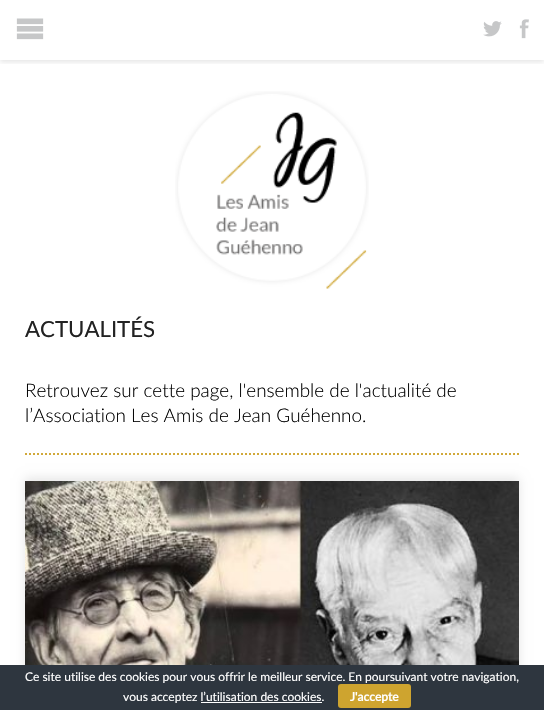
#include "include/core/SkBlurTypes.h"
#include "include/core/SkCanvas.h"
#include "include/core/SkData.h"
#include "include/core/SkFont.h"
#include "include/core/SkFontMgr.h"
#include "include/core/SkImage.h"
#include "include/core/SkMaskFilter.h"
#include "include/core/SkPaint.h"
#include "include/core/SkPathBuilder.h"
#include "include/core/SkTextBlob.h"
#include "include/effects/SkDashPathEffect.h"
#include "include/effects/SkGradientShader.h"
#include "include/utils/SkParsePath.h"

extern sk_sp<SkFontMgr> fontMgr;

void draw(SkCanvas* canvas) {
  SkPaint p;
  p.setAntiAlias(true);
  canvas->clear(SK_ColorWHITE);
  canvas->save();
  canvas->clipRect(SkRect::MakeLTRB(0, 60, 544, 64));
  p.setColor(SkColorSetARGB(26, 0, 0, 0));
  p.setMaskFilter(SkMaskFilter::MakeBlur(kNormal_SkBlurStyle, 2.5f));
  canvas->drawRect(SkRect::MakeLTRB(0, 2, 544, 62), p);
  p.setMaskFilter(nullptr);
  canvas->restore();
  canvas->drawImageRect(SkImages::DeferredFromEncodedData(SkData::MakeFromFileName("images/1.png")), SkRect::MakeLTRB(16, 18, 44, 40), SkSamplingOptions());
  canvas->drawImageRect(SkImages::DeferredFromEncodedData(SkData::MakeFromFileName("images/2.png")), SkRect::MakeLTRB(483, 21, 502, 37), SkSamplingOptions());
  canvas->drawImageRect(SkImages::DeferredFromEncodedData(SkData::MakeFromFileName("images/3.png")), SkRect::MakeLTRB(519, 19, 529, 39), SkSamplingOptions());
  canvas->drawImageRect(SkImages::DeferredFromEncodedData(SkData::MakeFromFileName("images/4.png")), SkRect::MakeLTRB(175, 91, 369, 289), SkSamplingOptions());
  p.setStyle(SkPaint::kStroke_Style);
  p.setStrokeWidth(2);
  p.setColor(SkColorSetRGB(209, 169, 58));
  p.setPathEffect(SkDashPathEffect::Make({{2, 2}}, 0));
  canvas->drawPath(SkPathBuilder().moveTo(25, 454).lineTo(519, 454).detach(), p);
  p.setPathEffect(nullptr);
  p.setStyle(SkPaint::kFill_Style);
  p.setColor(SkColorSetARGB(26, 0, 0, 0));
  p.setMaskFilter(SkMaskFilter::MakeBlur(kNormal_SkBlurStyle, 5));
  canvas->drawRect(SkRect::MakeLTRB(25, 478, 519, 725), p);
  p.setMaskFilter(nullptr);
  canvas->drawImageRect(SkImages::DeferredFromEncodedData(SkData::MakeFromFileName("images/5.png")), SkRect::MakeLTRB(25, 481, 519, 665), SkSamplingOptions());
  p.setColor(SkColorSetRGB(46, 54, 63));
  canvas->drawRect(SkRect::MakeLTRB(0, 665, 544, 710), p);
  p.setColor(SkColorSetRGB(206, 164, 47));
  canvas->drawRoundRect(SkRect::MakeLTRB(338, 684, 411, 708), 3, 3, p);
  p.setColor(SK_ColorWHITE);
  canvas->drawRect(SkRect::MakeLTRB(201, 702, 322, 703), p);
  SkFont font1(fontMgr->matchFamilyStyle("Lato", SkFontStyle::Normal()), 22.25f);
  font1.setSubpixel(true);
  p.setColor(SkColorSetRGB(34, 34, 34));
  canvas->drawString("ACTUALITÉS", 25, 337, font1, p);
  SkFont font2(fontMgr->matchFamilyStyle("Lato", SkFontStyle(300, SkFontStyle::kNormal_Width, SkFontStyle::kUpright_Slant)), 18.9f);
  font2.setSubpixel(true);
  p.setColor(SK_ColorBLACK);
  canvas->drawString("Retrouvez sur cette page, l'ensemble de l'actualité de", 25, 397, font2, p);
  canvas->drawString("l’Association Les Amis de Jean Guéhenno.", 25, 422, font2, p);
  SkFont font3(fontMgr->matchFamilyStyle("Lato", SkFontStyle::Normal()), 12);
  font3.setSubpixel(true);
  p.setColor(SK_ColorWHITE);
  canvas->drawString("Ce site utilise des cookies pour vous offrir le meilleur service. En poursuivant votre navigation,", 25, 681, font3, p);
  canvas->drawString("vous acceptez l’utilisation des cookies.", 123, 701, font3, p);
  SkFont font4(fontMgr->matchFamilyStyle("Lato", SkFontStyle::Bold()), 12);
  font4.setSubpixel(true);
  canvas->drawString("J'accepte", 350, 701, font4, p);
}
